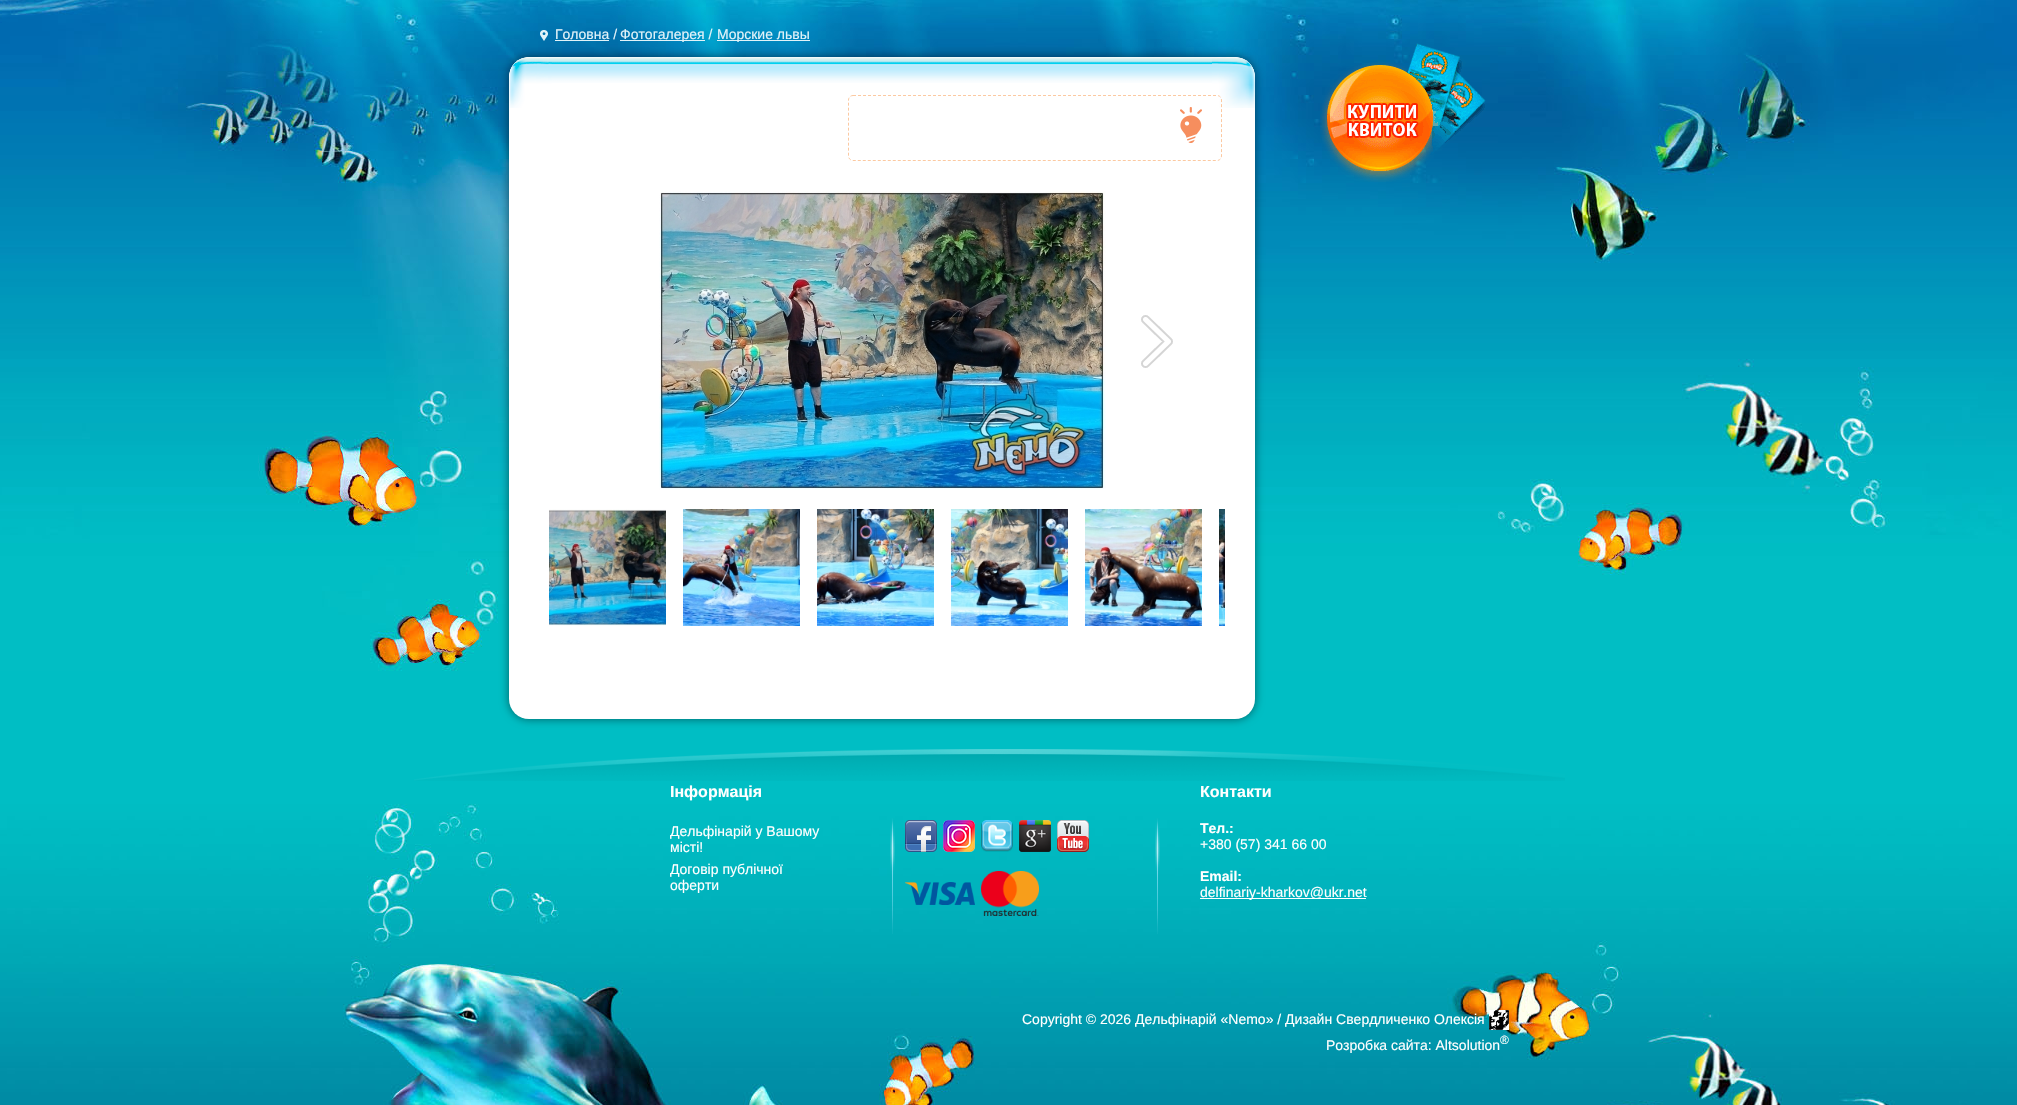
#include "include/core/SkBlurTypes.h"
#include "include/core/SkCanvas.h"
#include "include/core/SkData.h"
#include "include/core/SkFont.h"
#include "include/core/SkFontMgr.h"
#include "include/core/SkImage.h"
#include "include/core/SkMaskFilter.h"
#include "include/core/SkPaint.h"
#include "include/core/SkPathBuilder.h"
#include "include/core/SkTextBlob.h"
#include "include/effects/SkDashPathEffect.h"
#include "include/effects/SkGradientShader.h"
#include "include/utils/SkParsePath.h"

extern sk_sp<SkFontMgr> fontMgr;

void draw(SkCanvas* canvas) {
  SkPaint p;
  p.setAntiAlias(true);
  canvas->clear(SkColorSetRGB(0, 190, 196));
  canvas->drawImageRect(SkImages::DeferredFromEncodedData(SkData::MakeFromFileName("images/1.png")), SkRect::MakeLTRB(0, 0, 2017, 671), SkSamplingOptions());
  canvas->drawImageRect(SkImages::DeferredFromEncodedData(SkData::MakeFromFileName("images/2.png")), SkRect::MakeLTRB(540, 30, 548, 41), SkSamplingOptions());
  p.setColor(SkColorSetRGB(226, 243, 249));
  canvas->drawRect(SkRect::MakeLTRB(555, 40, 609, 41), p);
  canvas->drawRect(SkRect::MakeLTRB(620, 40, 705, 41), p);
  canvas->drawRect(SkRect::MakeLTRB(717, 40, 810, 41), p);
  p.setColor(SkColorSetARGB(128, 0, 0, 0));
  p.setMaskFilter(SkMaskFilter::MakeBlur(kNormal_SkBlurStyle, 5));
  canvas->drawRoundRect(SkRect::MakeLTRB(509, 57, 1255, 719), 20, 20, p);
  p.setMaskFilter(nullptr);
  p.setColor(SK_ColorWHITE);
  canvas->drawRoundRect(SkRect::MakeLTRB(509, 57, 1255, 719), 20, 20, p);
  canvas->drawImageRect(SkImages::DeferredFromEncodedData(SkData::MakeFromFileName("images/3.png")), SkRect::MakeLTRB(509, 57, 1255, 83), SkSamplingOptions());
  canvas->drawImageRect(SkImages::DeferredFromEncodedData(SkData::MakeFromFileName("images/4.png")), SkRect::MakeLTRB(509, 57, 552, 108), SkSamplingOptions());
  canvas->drawImageRect(SkImages::DeferredFromEncodedData(SkData::MakeFromFileName("images/5.png")), SkRect::MakeLTRB(1212, 57, 1255, 108), SkSamplingOptions());
  p.setStyle(SkPaint::kStroke_Style);
  p.setStrokeWidth(1);
  p.setColor(SkColorSetRGB(252, 201, 161));
  p.setPathEffect(SkDashPathEffect::Make({{3, 2}}, 0));
  canvas->drawPath(SkPathBuilder().moveTo(853, 95.5f).lineTo(1217, 95.5f).cubicTo(1219.5f, 95.5f, 1221.5f, 97.5f, 1221.5f, 100).lineTo(1221.5f, 156).cubicTo(1221.5f, 158.5f, 1219.5f, 160.5f, 1217, 160.5f).lineTo(853, 160.5f).cubicTo(850.5f, 160.5f, 848.5f, 158.5f, 848.5f, 156).lineTo(848.5f, 100).cubicTo(848.5f, 97.5f, 850.5f, 95.5f, 853, 95.5f).close().detach(), p);
  p.setPathEffect(nullptr);
  canvas->drawImageRect(SkImages::DeferredFromEncodedData(SkData::MakeFromFileName("images/6.png")), SkRect::MakeLTRB(1180, 107, 1202, 143), SkSamplingOptions());
  canvas->drawImageRect(SkImages::DeferredFromEncodedData(SkData::MakeFromFileName("images/7.png")), SkRect::MakeLTRB(659, 191, 1106, 490), SkSamplingOptions());
  canvas->drawImageRect(SkImages::DeferredFromEncodedData(SkData::MakeFromFileName("images/8.png")), SkRect::MakeLTRB(1141, 315, 1173, 368), SkSamplingOptions());
  canvas->drawImageRect(SkImages::DeferredFromEncodedData(SkData::MakeFromFileName("images/9.png")), SkRect::MakeLTRB(549, 509, 666, 626), SkSamplingOptions());
  canvas->drawImageRect(SkImages::DeferredFromEncodedData(SkData::MakeFromFileName("images/10.png")), SkRect::MakeLTRB(683, 509, 800, 626), SkSamplingOptions());
  canvas->drawImageRect(SkImages::DeferredFromEncodedData(SkData::MakeFromFileName("images/11.png")), SkRect::MakeLTRB(817, 509, 934, 626), SkSamplingOptions());
  canvas->drawImageRect(SkImages::DeferredFromEncodedData(SkData::MakeFromFileName("images/12.png")), SkRect::MakeLTRB(951, 509, 1068, 626), SkSamplingOptions());
  canvas->drawImageRect(SkImages::DeferredFromEncodedData(SkData::MakeFromFileName("images/13.png")), SkRect::MakeLTRB(1085, 509, 1202, 626), SkSamplingOptions());
  canvas->drawImageRect(SkImages::DeferredFromEncodedData(SkData::MakeFromFileName("images/14.png")), SkRect::MakeLTRB(1219, 509, 1225, 626), SkSamplingOptions());
  canvas->drawImageRect(SkImages::DeferredFromEncodedData(SkData::MakeFromFileName("images/15.png")), SkRect::MakeLTRB(1320, 43, 1486, 182), SkSamplingOptions());
  canvas->drawImageRect(SkImages::DeferredFromEncodedData(SkData::MakeFromFileName("images/16.png")), SkRect::MakeLTRB(414, 749, 1565, 781), SkSamplingOptions());
  canvas->drawImageRect(SkImages::DeferredFromEncodedData(SkData::MakeFromFileName("images/26.png")), SkRect::MakeLTRB(0, 804, 2017, 1105), SkSamplingOptions());
  canvas->drawImageRect(SkImages::DeferredFromEncodedData(SkData::MakeFromFileName("images/17.png")), SkRect::MakeLTRB(890, 818, 895, 934), SkSamplingOptions());
  canvas->drawImageRect(SkImages::DeferredFromEncodedData(SkData::MakeFromFileName("images/18.png")), SkRect::MakeLTRB(1155, 818, 1160, 934), SkSamplingOptions());
  canvas->drawImageRect(SkImages::DeferredFromEncodedData(SkData::MakeFromFileName("images/19.png")), SkRect::MakeLTRB(905, 820, 937, 852), SkSamplingOptions());
  canvas->drawImageRect(SkImages::DeferredFromEncodedData(SkData::MakeFromFileName("images/20.png")), SkRect::MakeLTRB(943, 820, 975, 852), SkSamplingOptions());
  canvas->drawImageRect(SkImages::DeferredFromEncodedData(SkData::MakeFromFileName("images/21.png")), SkRect::MakeLTRB(981, 820, 1013, 852), SkSamplingOptions());
  canvas->drawImageRect(SkImages::DeferredFromEncodedData(SkData::MakeFromFileName("images/22.png")), SkRect::MakeLTRB(1019, 820, 1051, 852), SkSamplingOptions());
  canvas->drawImageRect(SkImages::DeferredFromEncodedData(SkData::MakeFromFileName("images/23.png")), SkRect::MakeLTRB(1057, 820, 1089, 852), SkSamplingOptions());
  canvas->drawImageRect(SkImages::DeferredFromEncodedData(SkData::MakeFromFileName("images/24.png")), SkRect::MakeLTRB(905, 882, 975, 905), SkSamplingOptions());
  canvas->drawImageRect(SkImages::DeferredFromEncodedData(SkData::MakeFromFileName("images/25.png")), SkRect::MakeLTRB(981, 871, 1039, 916), SkSamplingOptions());
  p.setStyle(SkPaint::kFill_Style);
  p.setColor(SK_ColorWHITE);
  canvas->drawRect(SkRect::MakeLTRB(1200, 898, 1366, 899), p);
  canvas->drawImageRect(SkImages::DeferredFromEncodedData(SkData::MakeFromFileName("images/27.png")), SkRect::MakeLTRB(1489, 1010, 1509, 1030), SkSamplingOptions());
  SkFont font1(fontMgr->matchFamilyStyle("Liberation Sans", SkFontStyle::Normal()), 14);
  font1.setSubpixel(true);
  p.setColor(SkColorSetRGB(226, 243, 249));
  canvas->drawString("Головна /", 555, 39, font1, p);
  canvas->drawString("Фотогалерея /", 620, 39, font1, p);
  canvas->drawString("Морские львы", 717, 39, font1, p);
  SkFont font2(fontMgr->matchFamilyStyle("Liberation Sans", SkFontStyle::Bold()), 16);
  font2.setSubpixel(true);
  p.setColor(SK_ColorWHITE);
  canvas->drawString("Інформація", 670, 797, font2, p);
  canvas->drawString("Дельфiнарiй у Вашому", 670, 836, font1, p);
  canvas->drawString("мiстi!", 670, 852, font1, p);
  canvas->drawString("Договір публічної", 670, 874, font1, p);
  canvas->drawString("оферти", 670, 890, font1, p);
  canvas->drawString("Контакти", 1200, 797, font2, p);
  SkFont font3(fontMgr->matchFamilyStyle("Liberation Sans", SkFontStyle::Bold()), 14);
  font3.setSubpixel(true);
  canvas->drawString("Тел.:", 1200, 833, font3, p);
  canvas->drawString("+380 (57) 341 66 00", 1200, 849, font1, p);
  canvas->drawString("Email:", 1200, 881, font3, p);
  canvas->drawString("delfinariy-kharkov@ukr.net", 1200, 897, font1, p);
  canvas->drawString("Copyright © 2026 Дельфінарій «Nemo» / Дизайн Свердличенко Олексія", 1022, 1024, font1, p);
  canvas->drawString("Розробка сайта: Altsolution", 1326, 1050, font1, p);
  SkFont font4(fontMgr->matchFamilyStyle("Liberation Sans", SkFontStyle::Normal()), 12);
  font4.setSubpixel(true);
  canvas->drawString("®", 1500, 1044, font4, p);
}
